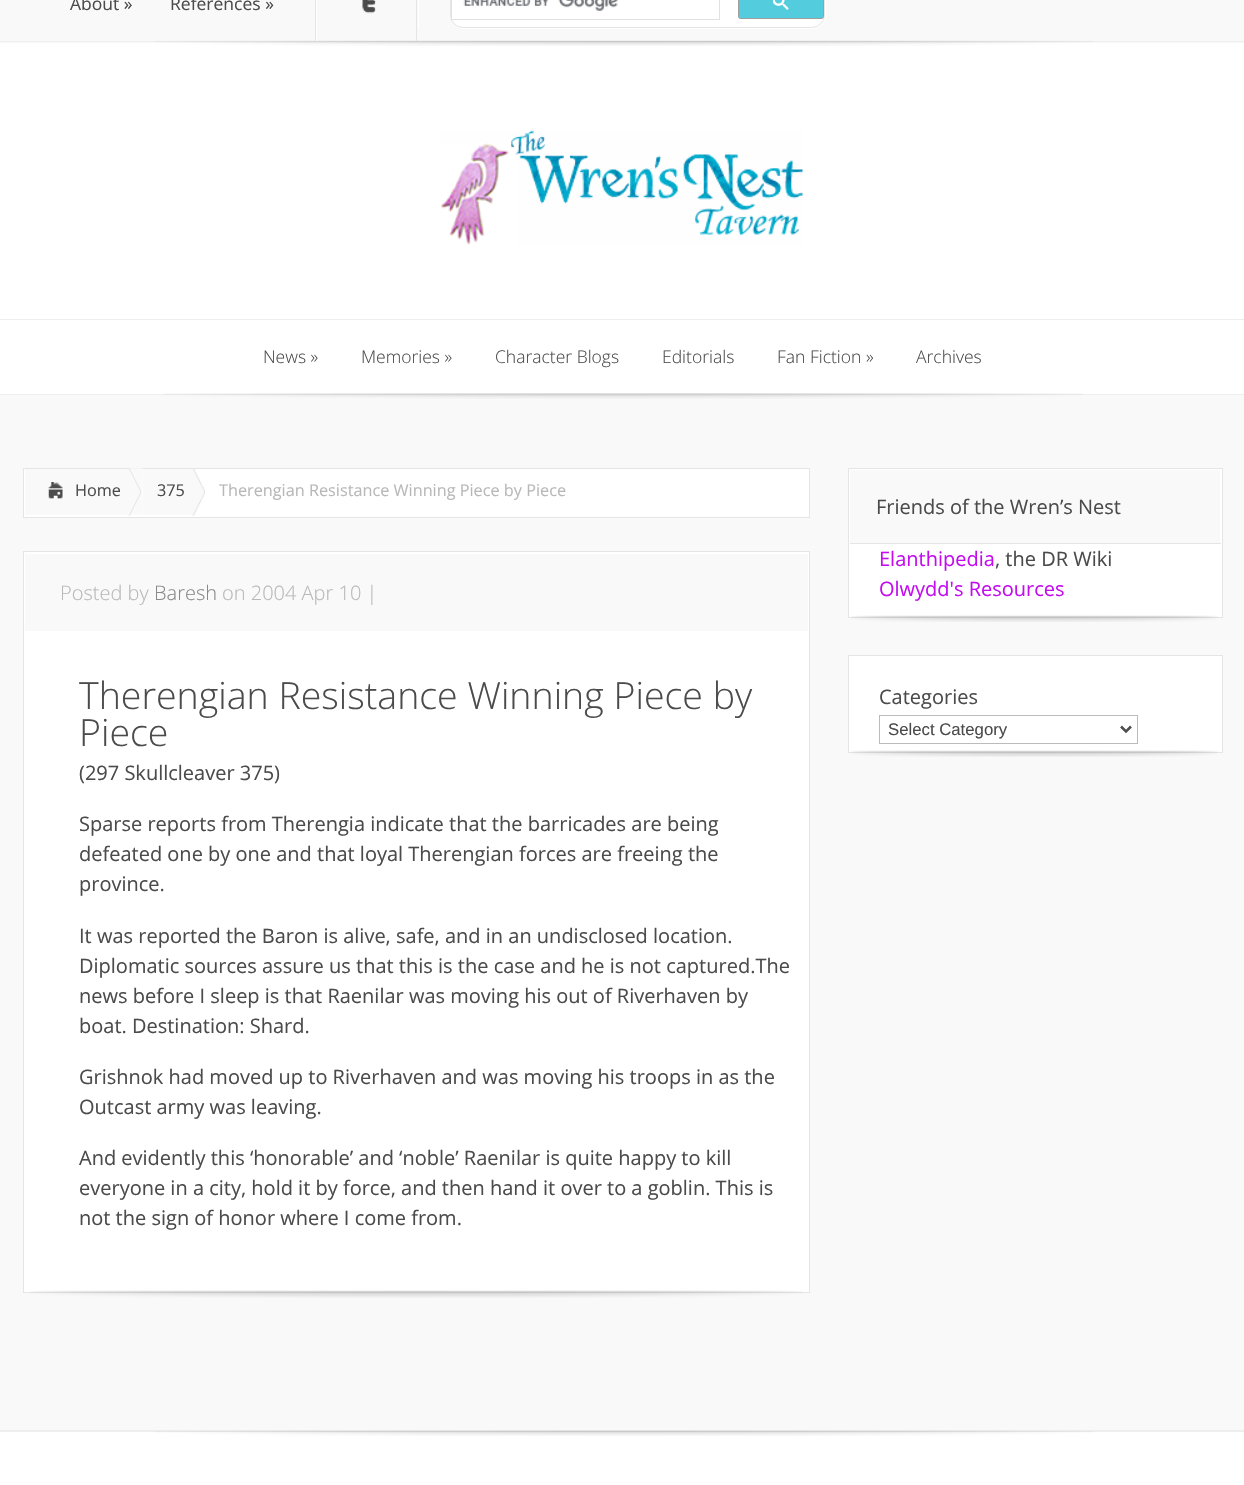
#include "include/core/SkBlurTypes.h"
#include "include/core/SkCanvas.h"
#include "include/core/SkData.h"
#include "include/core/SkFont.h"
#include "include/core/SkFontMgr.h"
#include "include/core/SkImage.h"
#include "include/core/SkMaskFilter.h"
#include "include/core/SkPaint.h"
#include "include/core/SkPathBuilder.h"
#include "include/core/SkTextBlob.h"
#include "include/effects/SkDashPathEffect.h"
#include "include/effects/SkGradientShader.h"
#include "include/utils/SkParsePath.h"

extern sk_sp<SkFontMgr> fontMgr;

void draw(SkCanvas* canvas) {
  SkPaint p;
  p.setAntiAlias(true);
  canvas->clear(SK_ColorWHITE);
  p.setColor(SkColorSetRGB(249, 249, 249));
  canvas->drawRect(SkRect::MakeLTRB(0, 0, 1244, 43), p);
  p.setColor(SkColorSetRGB(238, 238, 238));
  canvas->drawRect(SkRect::MakeLTRB(0, 41, 1244, 42), p);
  canvas->drawImageRect(SkImages::DeferredFromEncodedData(SkData::MakeFromFileName("images/4.png")), SkRect::MakeLTRB(155, 40, 1093, 46), SkSamplingOptions());
  p.setColor(SkColorSetRGB(229, 229, 229));
  canvas->drawRect(SkRect::MakeLTRB(315, 0, 316, 41), p);
  canvas->drawRect(SkRect::MakeLTRB(416, 0, 417, 41), p);
  p.setColor(SK_ColorWHITE);
  canvas->drawRect(SkRect::MakeLTRB(316, 0, 317, 41), p);
  canvas->drawImageRect(SkImages::DeferredFromEncodedData(SkData::MakeFromFileName("images/1.png")), SkRect::MakeLTRB(362, 0, 376, 14), SkSamplingOptions());
  canvas->drawRect(SkRect::MakeLTRB(418, 0, 419, 28), p);
  canvas->drawPath(SkPathBuilder().moveTo(454, 24).cubicTo(456, 27, 460, 29, 464, 29).lineTo(813, 29).cubicTo(820, 29, 826, 23, 826, 16).lineTo(826, -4).cubicTo(826, -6, 825, -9, 824, -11).lineTo(825, -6).lineTo(825, 15).cubicTo(825, 22, 819, 28, 812, 28).lineTo(462, 28).cubicTo(459, 28, 456, 26, 454, 24).close().detach(), p);
  canvas->drawRoundRect(SkRect::MakeLTRB(450.5f, -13.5f, 824.5f, 27.5f), 12.5f, 12.5f, p);
  p.setStyle(SkPaint::kStroke_Style);
  p.setStrokeWidth(1);
  p.setColor(SkColorSetRGB(229, 229, 229));
  canvas->drawRoundRect(SkRect::MakeLTRB(450.5f, -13.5f, 824.5f, 27.5f), 12.5f, 12.5f, p);
  p.setColor(SkColorSetRGB(223, 225, 229));
  canvas->drawRect(SkRect::MakeLTRB(451.5f, -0.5f, 719.5f, 19.5f), p);
  canvas->drawImageRect(SkImages::DeferredFromEncodedData(SkData::MakeFromFileName("images/2.png")), SkRect::MakeLTRB(463, 0, 618, 11), SkSamplingOptions());
  p.setStyle(SkPaint::kFill_Style);
  p.setColor(SkColorSetRGB(83, 204, 221));
  canvas->drawRoundRect(SkRect::MakeLTRB(738.5f, -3.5f, 823.5f, 18.5f), 2, 2, p);
  p.setStyle(SkPaint::kStroke_Style);
  p.setColor(SkColorSetRGB(158, 158, 158));
  canvas->drawRoundRect(SkRect::MakeLTRB(738.5f, -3.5f, 823.5f, 18.5f), 2, 2, p);
  canvas->drawImageRect(SkImages::DeferredFromEncodedData(SkData::MakeFromFileName("images/3.png")), SkRect::MakeLTRB(773, 0, 789, 10), SkSamplingOptions());
  canvas->drawImageRect(SkImages::DeferredFromEncodedData(SkData::MakeFromFileName("images/5.png")), SkRect::MakeLTRB(441, 130, 803, 245), SkSamplingOptions());
  p.setStyle(SkPaint::kFill_Style);
  p.setColor(SkColorSetRGB(238, 238, 238));
  canvas->drawRect(SkRect::MakeLTRB(0, 319, 1244, 320), p);
  canvas->drawRect(SkRect::MakeLTRB(0, 394, 1244, 395), p);
  p.setColor(SkColorSetRGB(249, 249, 249));
  canvas->drawRect(SkRect::MakeLTRB(0, 395, 1244, 1430), p);
  canvas->drawImageRect(SkImages::DeferredFromEncodedData(SkData::MakeFromFileName("images/6.png")), SkRect::MakeLTRB(164, 393, 1083, 399), SkSamplingOptions());
  p.setColor(SkColorSetRGB(238, 238, 238));
  canvas->drawRect(SkRect::MakeLTRB(0, 1430, 1244, 1432), p);
  p.setColor(SK_ColorWHITE);
  canvas->drawRect(SkRect::MakeLTRB(23.5f, 468.5f, 809.5f, 517.5f), p);
  p.setStyle(SkPaint::kStroke_Style);
  p.setColor(SkColorSetRGB(229, 229, 229));
  canvas->drawRect(SkRect::MakeLTRB(23.5f, 468.5f, 809.5f, 517.5f), p);
  p.setStyle(SkPaint::kFill_Style);
  p.setColor(SkColorSetRGB(249, 249, 249));
  canvas->drawRect(SkRect::MakeLTRB(25, 469, 129, 515), p);
  canvas->drawImageRect(SkImages::DeferredFromEncodedData(SkData::MakeFromFileName("images/7.png")), SkRect::MakeLTRB(48, 482, 64, 499), SkSamplingOptions());
  canvas->drawImageRect(SkImages::DeferredFromEncodedData(SkData::MakeFromFileName("images/8.png")), SkRect::MakeLTRB(128, 468, 143, 516), SkSamplingOptions());
  canvas->drawRect(SkRect::MakeLTRB(143, 469, 193, 515), p);
  canvas->drawImageRect(SkImages::DeferredFromEncodedData(SkData::MakeFromFileName("images/9.png")), SkRect::MakeLTRB(192, 469, 205, 516), SkSamplingOptions());
  p.setColor(SK_ColorWHITE);
  canvas->drawRect(SkRect::MakeLTRB(23.5f, 551.5f, 809.5f, 1292.5f), p);
  p.setStyle(SkPaint::kStroke_Style);
  p.setColor(SkColorSetRGB(229, 229, 229));
  canvas->drawRect(SkRect::MakeLTRB(23.5f, 551.5f, 809.5f, 1292.5f), p);
  p.setStyle(SkPaint::kFill_Style);
  p.setColor(SkColorSetRGB(249, 249, 249));
  canvas->drawRect(SkRect::MakeLTRB(25, 554, 808, 631), p);
  canvas->drawImageRect(SkImages::DeferredFromEncodedData(SkData::MakeFromFileName("images/10.png")), SkRect::MakeLTRB(30, 1290, 803, 1298), SkSamplingOptions());
  p.setColor(SK_ColorWHITE);
  canvas->drawRect(SkRect::MakeLTRB(848.5f, 468.5f, 1222.5f, 617.5f), p);
  p.setStyle(SkPaint::kStroke_Style);
  p.setColor(SkColorSetRGB(229, 229, 229));
  canvas->drawRect(SkRect::MakeLTRB(848.5f, 468.5f, 1222.5f, 617.5f), p);
  p.setStyle(SkPaint::kFill_Style);
  p.setColor(SkColorSetRGB(249, 249, 249));
  canvas->drawRect(SkRect::MakeLTRB(850, 470, 1220, 543), p);
  p.setColor(SkColorSetRGB(229, 229, 229));
  canvas->drawRect(SkRect::MakeLTRB(849, 543, 1221, 544), p);
  p.setColor(SK_ColorWHITE);
  canvas->drawRect(SkRect::MakeLTRB(849, 543, 850, 544), p);
  canvas->drawImageRect(SkImages::DeferredFromEncodedData(SkData::MakeFromFileName("images/11.png")), SkRect::MakeLTRB(851, 615, 1218, 622), SkSamplingOptions());
  canvas->drawRect(SkRect::MakeLTRB(848.5f, 655.5f, 1222.5f, 752.5f), p);
  p.setStyle(SkPaint::kStroke_Style);
  p.setColor(SkColorSetRGB(229, 229, 229));
  canvas->drawRect(SkRect::MakeLTRB(848.5f, 655.5f, 1222.5f, 752.5f), p);
  p.setColor(SkColorSetRGB(187, 187, 187));
  canvas->drawRect(SkRect::MakeLTRB(879.5f, 715.5f, 1137.5f, 743.5f), p);
  p.setStrokeWidth(2.5f);
  p.setColor(SkColorSetRGB(78, 78, 78));
  canvas->drawPath(SkPathBuilder().moveTo(1121, 726.5f).lineTo(1126, 731.5f).lineTo(1131, 726.5f).detach(), p);
  canvas->drawImageRect(SkImages::DeferredFromEncodedData(SkData::MakeFromFileName("images/11.png")), SkRect::MakeLTRB(851, 750, 1218, 757), SkSamplingOptions());
  canvas->drawImageRect(SkImages::DeferredFromEncodedData(SkData::MakeFromFileName("images/12.png")), SkRect::MakeLTRB(155, 1430, 1093, 1436), SkSamplingOptions());
  SkFont font1(fontMgr->matchFamilyStyle("Open Sans", SkFontStyle::Normal()), 17.5f);
  font1.setSubpixel(true);
  p.setStyle(SkPaint::kFill_Style);
  p.setColor(SkColorSetRGB(75, 75, 75));
  canvas->drawString("About »", 70, 10, font1, p);
  canvas->drawString("References »", 170, 10, font1, p);
  SkFont font2(fontMgr->matchFamilyStyle("Open Sans", SkFontStyle(300, SkFontStyle::kNormal_Width, SkFontStyle::kUpright_Slant)), 17.5f);
  font2.setSubpixel(true);
  canvas->drawString("News »", 263, 363, font2, p);
  canvas->drawString("Memories »", 361, 363, font2, p);
  canvas->drawString("Character Blogs", 495, 363, font2, p);
  canvas->drawString("Editorials", 662, 363, font2, p);
  canvas->drawString("Fan Fiction »", 777, 363, font2, p);
  canvas->drawString("Archives", 916, 363, font2, p);
  SkFont font3(fontMgr->matchFamilyStyle("Open Sans", SkFontStyle::Normal()), 16.25f);
  font3.setSubpixel(true);
  canvas->drawString("Home", 75, 496, font3, p);
  canvas->drawString("375", 157, 496, font3, p);
  p.setColor(SkColorSetRGB(184, 184, 184));
  canvas->drawString("Therengian Resistance Winning Piece by Piece", 219, 496, font3, p);
  SkFont font4(fontMgr->matchFamilyStyle("Open Sans", SkFontStyle(300, SkFontStyle::kNormal_Width, SkFontStyle::kUpright_Slant)), 20);
  font4.setSubpixel(true);
  canvas->drawString("Posted by", 60, 600, font4, p);
  p.setColor(SkColorSetRGB(136, 136, 136));
  canvas->drawString("Baresh", 154, 600, font4, p);
  p.setColor(SkColorSetRGB(184, 184, 184));
  canvas->drawString("on 2004 Apr 10 |", 222, 600, font4, p);
  SkFont font5(fontMgr->matchFamilyStyle("Open Sans", SkFontStyle(300, SkFontStyle::kNormal_Width, SkFontStyle::kUpright_Slant)), 37.5f);
  font5.setSubpixel(true);
  p.setColor(SkColorSetRGB(75, 75, 75));
  canvas->drawString("Therengian Resistance Winning Piece by", 79, 709, font5, p);
  canvas->drawString("Piece", 79, 746, font5, p);
  SkFont font6(fontMgr->matchFamilyStyle("Open Sans", SkFontStyle::Normal()), 20);
  font6.setSubpixel(true);
  canvas->drawString("(297 Skullcleaver 375)", 79, 780, font6, p);
  canvas->drawString("Sparse reports from Therengia indicate that the barricades are being", 79, 831, font6, p);
  canvas->drawString("defeated one by one and that loyal Therengian forces are freeing the", 79, 861, font6, p);
  canvas->drawString("province.", 79, 891, font6, p);
  canvas->drawString("It was reported the Baron is alive, safe, and in an undisclosed location.", 79, 943, font6, p);
  canvas->drawString("Diplomatic sources assure us that this is the case and he is not captured.The", 79, 973, font6, p);
  canvas->drawString("news before I sleep is that Raenilar was moving his out of Riverhaven by", 79, 1003, font6, p);
  canvas->drawString("boat. Destination: Shard.", 79, 1033, font6, p);
  canvas->drawString("Grishnok had moved up to Riverhaven and was moving his troops in as the", 79, 1084, font6, p);
  canvas->drawString("Outcast army was leaving.", 79, 1114, font6, p);
  canvas->drawString("And evidently this ‘honorable’ and ‘noble’ Raenilar is quite happy to kill", 79, 1165, font6, p);
  canvas->drawString("everyone in a city, hold it by force, and then hand it over to a goblin. This is", 79, 1195, font6, p);
  canvas->drawString("not the sign of honor where I come from.", 79, 1225, font6, p);
  canvas->drawString("Friends of the Wren’s Nest", 876, 514, font6, p);
  p.setColor(SkColorSetRGB(195, 13, 240));
  canvas->drawString("Elanthipedia", 879, 566, font6, p);
  p.setColor(SkColorSetRGB(75, 75, 75));
  canvas->drawString(", the DR Wiki", 995, 566, font6, p);
  p.setColor(SkColorSetRGB(195, 13, 240));
  canvas->drawString("Olwydd's Resources", 879, 596, font6, p);
  p.setColor(SkColorSetRGB(75, 75, 75));
  canvas->drawString("Categories", 879, 704, font6, p);
  SkFont font7(fontMgr->matchFamilyStyle("Liberation Sans", SkFontStyle::Normal()), 16.75f);
  font7.setSubpixel(true);
  canvas->drawString("Select Category", 888, 735, font7, p);
}
